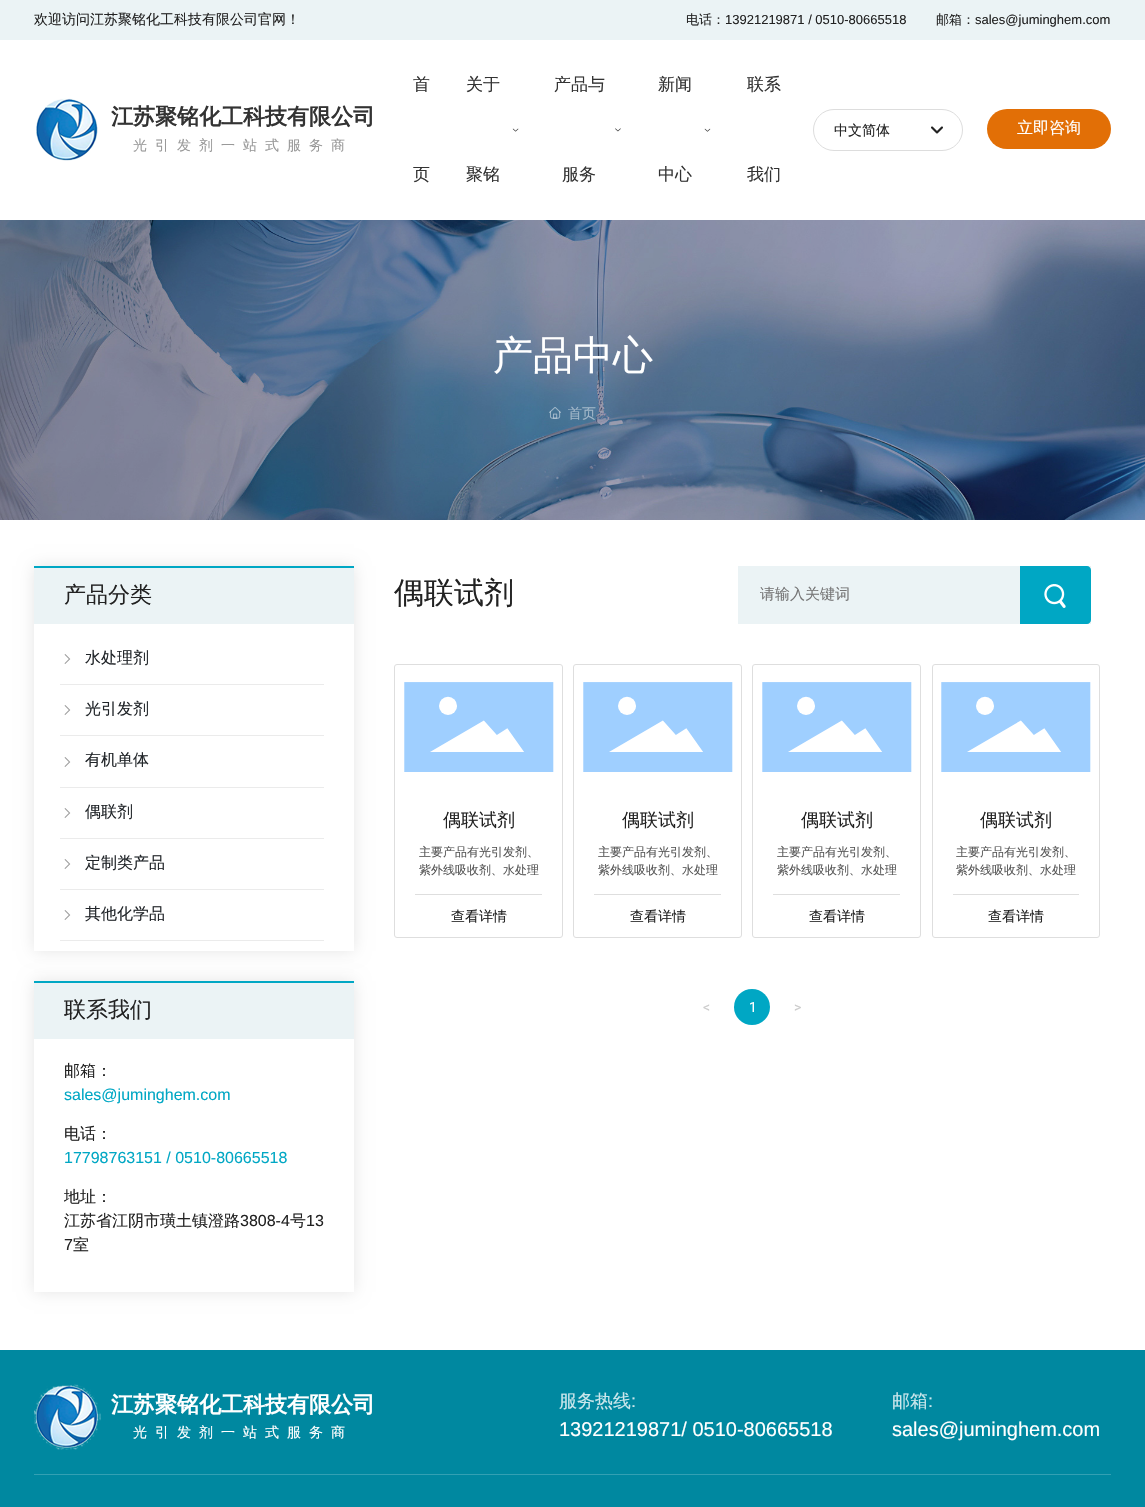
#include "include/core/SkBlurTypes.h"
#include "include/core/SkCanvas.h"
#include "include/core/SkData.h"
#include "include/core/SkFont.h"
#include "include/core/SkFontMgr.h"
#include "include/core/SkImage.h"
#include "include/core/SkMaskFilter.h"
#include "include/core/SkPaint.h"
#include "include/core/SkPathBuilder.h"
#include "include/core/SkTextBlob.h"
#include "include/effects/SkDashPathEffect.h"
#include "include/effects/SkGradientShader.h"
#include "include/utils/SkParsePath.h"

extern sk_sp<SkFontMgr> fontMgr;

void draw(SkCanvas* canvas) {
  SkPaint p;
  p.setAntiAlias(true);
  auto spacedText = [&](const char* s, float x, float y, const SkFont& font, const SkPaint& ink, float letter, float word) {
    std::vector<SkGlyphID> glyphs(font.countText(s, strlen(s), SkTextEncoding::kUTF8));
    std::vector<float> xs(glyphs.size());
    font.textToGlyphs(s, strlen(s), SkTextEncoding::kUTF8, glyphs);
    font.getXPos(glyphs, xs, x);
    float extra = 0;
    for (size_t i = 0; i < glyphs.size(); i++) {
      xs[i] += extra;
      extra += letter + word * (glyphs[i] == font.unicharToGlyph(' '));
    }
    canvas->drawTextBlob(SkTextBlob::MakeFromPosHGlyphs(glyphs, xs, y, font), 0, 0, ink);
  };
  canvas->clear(SK_ColorWHITE);
  p.setColor(SkColorSetRGB(235, 243, 245));
  canvas->drawRect(SkRect::MakeLTRB(0, 0, 1145, 40), p);
  canvas->drawImageRect(SkImages::DeferredFromEncodedData(SkData::MakeFromFileName("images/1.png")), SkRect::MakeLTRB(36, 98, 98, 161), SkSamplingOptions());
  canvas->drawImageRect(SkImages::DeferredFromEncodedData(SkData::MakeFromFileName("images/2.png")), SkRect::MakeLTRB(512, 128, 519, 132), SkSamplingOptions());
  canvas->drawImageRect(SkImages::DeferredFromEncodedData(SkData::MakeFromFileName("images/3.png")), SkRect::MakeLTRB(615, 128, 621, 132), SkSamplingOptions());
  canvas->drawImageRect(SkImages::DeferredFromEncodedData(SkData::MakeFromFileName("images/4.png")), SkRect::MakeLTRB(704, 128, 711, 132), SkSamplingOptions());
  p.setStyle(SkPaint::kStroke_Style);
  p.setStrokeWidth(1);
  p.setColor(SkColorSetRGB(221, 221, 221));
  canvas->drawRoundRect(SkRect::MakeLTRB(813.5f, 109.5f, 962.5f, 150.5f), 20.5f, 20.5f, p);
  canvas->drawImageRect(SkImages::DeferredFromEncodedData(SkData::MakeFromFileName("images/5.png")), SkRect::MakeLTRB(931, 126, 943, 134), SkSamplingOptions());
  p.setStyle(SkPaint::kFill_Style);
  p.setColor(SkColorSetRGB(226, 111, 6));
  canvas->drawRoundRect(SkRect::MakeLTRB(987, 109, 1111, 149), 20, 20, p);
  canvas->drawImageRect(SkImages::DeferredFromEncodedData(SkData::MakeFromFileName("images/6.png")), SkRect::MakeLTRB(0, 220, 1145, 520), SkSamplingOptions());
  canvas->drawImageRect(SkImages::DeferredFromEncodedData(SkData::MakeFromFileName("images/7.png")), SkRect::MakeLTRB(549, 407, 561, 419), SkSamplingOptions());
  canvas->save();
  canvas->clipPath(SkPathBuilder(SkPathFillType::kEvenOdd).moveTo(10, 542).lineTo(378, 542).lineTo(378, 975).lineTo(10, 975).close().moveTo(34, 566).lineTo(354, 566).lineTo(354, 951).lineTo(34, 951).close().detach(), true);
  p.setColor(SkColorSetARGB(26, 0, 0, 0));
  p.setMaskFilter(SkMaskFilter::MakeBlur(kNormal_SkBlurStyle, 7.5f));
  canvas->drawRect(SkRect::MakeLTRB(34, 566, 354, 951), p);
  p.setMaskFilter(nullptr);
  canvas->restore();
  p.setColor(SkColorSetRGB(235, 243, 245));
  canvas->drawRect(SkRect::MakeLTRB(34, 568, 354, 624), p);
  p.setColor(SkColorSetRGB(0, 167, 196));
  canvas->drawRect(SkRect::MakeLTRB(34, 566, 354, 568), p);
  p.setColor(SkColorSetRGB(235, 235, 235));
  canvas->drawRect(SkRect::MakeLTRB(60, 684, 324, 685), p);
  canvas->drawImageRect(SkImages::DeferredFromEncodedData(SkData::MakeFromFileName("images/8.png")), SkRect::MakeLTRB(64, 654, 71, 664), SkSamplingOptions());
  canvas->drawRect(SkRect::MakeLTRB(60, 735, 324, 736), p);
  canvas->drawImageRect(SkImages::DeferredFromEncodedData(SkData::MakeFromFileName("images/8.png")), SkRect::MakeLTRB(64, 705, 71, 715), SkSamplingOptions());
  canvas->drawRect(SkRect::MakeLTRB(60, 787, 324, 788), p);
  canvas->drawImageRect(SkImages::DeferredFromEncodedData(SkData::MakeFromFileName("images/8.png")), SkRect::MakeLTRB(64, 757, 71, 767), SkSamplingOptions());
  canvas->drawRect(SkRect::MakeLTRB(60, 838, 324, 839), p);
  canvas->drawImageRect(SkImages::DeferredFromEncodedData(SkData::MakeFromFileName("images/8.png")), SkRect::MakeLTRB(64, 808, 71, 818), SkSamplingOptions());
  canvas->drawRect(SkRect::MakeLTRB(60, 889, 324, 890), p);
  canvas->drawImageRect(SkImages::DeferredFromEncodedData(SkData::MakeFromFileName("images/8.png")), SkRect::MakeLTRB(64, 859, 71, 869), SkSamplingOptions());
  canvas->drawRect(SkRect::MakeLTRB(60, 940, 324, 941), p);
  canvas->drawImageRect(SkImages::DeferredFromEncodedData(SkData::MakeFromFileName("images/8.png")), SkRect::MakeLTRB(64, 910, 71, 920), SkSamplingOptions());
  canvas->save();
  canvas->clipPath(SkPathBuilder(SkPathFillType::kEvenOdd).moveTo(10, 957).lineTo(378, 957).lineTo(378, 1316).lineTo(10, 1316).close().moveTo(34, 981).lineTo(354, 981).lineTo(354, 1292).lineTo(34, 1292).close().detach(), true);
  p.setColor(SkColorSetARGB(26, 0, 0, 0));
  p.setMaskFilter(SkMaskFilter::MakeBlur(kNormal_SkBlurStyle, 7.5f));
  canvas->drawRect(SkRect::MakeLTRB(34, 981, 354, 1292), p);
  p.setMaskFilter(nullptr);
  canvas->restore();
  p.setColor(SkColorSetRGB(235, 243, 245));
  canvas->drawRect(SkRect::MakeLTRB(34, 983, 354, 1039), p);
  p.setColor(SkColorSetRGB(0, 167, 196));
  canvas->drawRect(SkRect::MakeLTRB(34, 981, 354, 983), p);
  p.setColor(SkColorSetRGB(235, 243, 245));
  canvas->drawRect(SkRect::MakeLTRB(738, 566, 1091, 624), p);
  p.setColor(SkColorSetRGB(0, 167, 196));
  canvas->drawPath(SkPathBuilder().moveTo(1020, 566).lineTo(1087, 566).cubicTo(1089, 566, 1091, 568, 1091, 570).lineTo(1091, 620).cubicTo(1091, 622, 1089, 624, 1087, 624).lineTo(1020, 624).close().detach(), p);
  canvas->drawImageRect(SkImages::DeferredFromEncodedData(SkData::MakeFromFileName("images/9.png")), SkRect::MakeLTRB(1044, 584, 1066, 608), SkSamplingOptions());
  p.setStyle(SkPaint::kStroke_Style);
  p.setColor(SkColorSetRGB(222, 222, 222));
  canvas->drawRoundRect(SkRect::MakeLTRB(394.5f, 664.5f, 562.5f, 937.5f), 2.5f, 2.5f, p);
  canvas->drawImageRect(SkImages::DeferredFromEncodedData(SkData::MakeFromFileName("images/10.png")), SkRect::MakeLTRB(404, 682, 554, 772), SkSamplingOptions());
  p.setStyle(SkPaint::kFill_Style);
  canvas->drawRect(SkRect::MakeLTRB(415, 894, 542, 895), p);
  p.setStyle(SkPaint::kStroke_Style);
  canvas->drawRoundRect(SkRect::MakeLTRB(573.5f, 664.5f, 741.5f, 937.5f), 2.5f, 2.5f, p);
  canvas->drawImageRect(SkImages::DeferredFromEncodedData(SkData::MakeFromFileName("images/11.png")), SkRect::MakeLTRB(583, 682, 733, 772), SkSamplingOptions());
  p.setStyle(SkPaint::kFill_Style);
  canvas->drawRect(SkRect::MakeLTRB(594, 894, 721, 895), p);
  p.setStyle(SkPaint::kStroke_Style);
  canvas->drawRoundRect(SkRect::MakeLTRB(752.5f, 664.5f, 920.5f, 937.5f), 2.5f, 2.5f, p);
  canvas->drawImageRect(SkImages::DeferredFromEncodedData(SkData::MakeFromFileName("images/11.png")), SkRect::MakeLTRB(762, 682, 912, 772), SkSamplingOptions());
  p.setStyle(SkPaint::kFill_Style);
  canvas->drawRect(SkRect::MakeLTRB(773, 894, 900, 895), p);
  p.setStyle(SkPaint::kStroke_Style);
  canvas->drawRoundRect(SkRect::MakeLTRB(932.5f, 664.5f, 1099.5f, 937.5f), 2.5f, 2.5f, p);
  canvas->drawImageRect(SkImages::DeferredFromEncodedData(SkData::MakeFromFileName("images/12.png")), SkRect::MakeLTRB(941, 682, 1091, 772), SkSamplingOptions());
  p.setStyle(SkPaint::kFill_Style);
  canvas->drawRect(SkRect::MakeLTRB(953, 894, 1079, 895), p);
  p.setColor(SkColorSetRGB(0, 167, 196));
  canvas->drawCircle(752, 1007, 18, p);
  p.setColor(SkColorSetRGB(0, 136, 160));
  canvas->drawRect(SkRect::MakeLTRB(0, 1350, 1145, 1507), p);
  p.setColor(SkColorSetRGB(51, 160, 179));
  canvas->drawRect(SkRect::MakeLTRB(34, 1474, 1111, 1475), p);
  canvas->drawImageRect(SkImages::DeferredFromEncodedData(SkData::MakeFromFileName("images/13.png")), SkRect::MakeLTRB(34, 1384, 101, 1450), SkSamplingOptions());
  SkFont font1(fontMgr->matchFamilyStyle("WenQuanYi Zen Hei", SkFontStyle(500, SkFontStyle::kNormal_Width, SkFontStyle::kUpright_Slant)), 14);
  font1.setSubpixel(true);
  p.setColor(SkColorSetRGB(34, 34, 34));
  canvas->drawString("欢迎访问江苏聚铭化工科技有限公司官网！", 34, 24, font1, p);
  SkFont font2(fontMgr->matchFamilyStyle("WenQuanYi Zen Hei", SkFontStyle(500, SkFontStyle::kNormal_Width, SkFontStyle::kUpright_Slant)), 13);
  font2.setSubpixel(true);
  canvas->drawString("电话：", 686, 24, font2, p);
  SkFont font3(fontMgr->matchFamilyStyle("Liberation Sans", SkFontStyle::Normal()), 13);
  font3.setSubpixel(true);
  canvas->drawString("13921219871 / 0510-80665518", 725, 24, font3, p);
  canvas->drawString("邮箱：", 936, 24, font2, p);
  canvas->drawString("sales@juminghem.com", 975, 24, font3, p);
  SkFont font4(fontMgr->matchFamilyStyle("WenQuanYi Zen Hei", SkFontStyle::Bold()), 22);
  font4.setSubpixel(true);
  p.setColor(SkColorSetRGB(51, 51, 51));
  canvas->drawString("江苏聚铭化工科技有限公司", 111, 124, font4, p);
  p.setColor(SkColorSetRGB(153, 153, 153));
  spacedText("光引发剂一站式服务商", 133, 150, font1, p, 8, 0);
  SkFont font5(fontMgr->matchFamilyStyle("WenQuanYi Zen Hei", SkFontStyle(500, SkFontStyle::kNormal_Width, SkFontStyle::kUpright_Slant)), 17);
  font5.setSubpixel(true);
  p.setColor(SkColorSetRGB(51, 51, 51));
  canvas->drawString("首", 413, 90, font5, p);
  canvas->drawString("页", 413, 180, font5, p);
  canvas->drawString("关于", 466, 90, font5, p);
  canvas->drawString("聚铭", 466, 180, font5, p);
  canvas->drawString("产品与", 554, 90, font5, p);
  canvas->drawString("服务", 562, 180, font5, p);
  canvas->drawString("新闻", 658, 90, font5, p);
  canvas->drawString("中心", 658, 180, font5, p);
  canvas->drawString("联系", 747, 90, font5, p);
  canvas->drawString("我们", 747, 180, font5, p);
  p.setColor(SkColorSetRGB(34, 34, 34));
  canvas->drawString("中文简体", 834, 135, font1, p);
  SkFont font6(fontMgr->matchFamilyStyle("WenQuanYi Zen Hei", SkFontStyle(500, SkFontStyle::kNormal_Width, SkFontStyle::kUpright_Slant)), 16);
  font6.setSubpixel(true);
  p.setColor(SK_ColorWHITE);
  canvas->drawString("立即咨询", 1017, 133, font6, p);
  SkFont font7(fontMgr->matchFamilyStyle("WenQuanYi Zen Hei", SkFontStyle(500, SkFontStyle::kNormal_Width, SkFontStyle::kUpright_Slant)), 40);
  font7.setSubpixel(true);
  canvas->drawString("产品中心", 493, 369, font7, p);
  p.setColor(SkColorSetRGB(162, 184, 201));
  canvas->drawString("首页", 568, 418, font1, p);
  SkFont font8(fontMgr->matchFamilyStyle("WenQuanYi Zen Hei", SkFontStyle(500, SkFontStyle::kNormal_Width, SkFontStyle::kUpright_Slant)), 22);
  font8.setSubpixel(true);
  p.setColor(SkColorSetRGB(34, 34, 34));
  canvas->drawString("产品分类", 64, 602, font8, p);
  p.setColor(SkColorSetRGB(33, 37, 41));
  canvas->drawString("水处理剂", 85, 663, font6, p);
  canvas->drawString("光引发剂", 85, 714, font6, p);
  canvas->drawString("有机单体", 85, 765, font6, p);
  canvas->drawString("偶联剂", 85, 817, font6, p);
  canvas->drawString("定制类产品", 85, 868, font6, p);
  canvas->drawString("其他化学品", 85, 919, font6, p);
  p.setColor(SkColorSetRGB(34, 34, 34));
  canvas->drawString("联系我们", 64, 1017, font8, p);
  canvas->drawString("邮箱：", 64, 1076, font6, p);
  SkFont font9(fontMgr->matchFamilyStyle("Liberation Sans", SkFontStyle::Normal()), 16);
  font9.setSubpixel(true);
  p.setColor(SkColorSetRGB(0, 167, 196));
  canvas->drawString("sales@juminghem.com", 64, 1100, font9, p);
  p.setColor(SkColorSetRGB(34, 34, 34));
  canvas->drawString("电话：", 64, 1139, font6, p);
  p.setColor(SkColorSetRGB(0, 167, 196));
  canvas->drawString("17798763151 / 0510-80665518", 64, 1163, font9, p);
  p.setColor(SkColorSetRGB(34, 34, 34));
  canvas->drawString("地址：", 64, 1202, font6, p);
  canvas->drawString("江苏省江阴市璜土镇澄路", 64, 1226, font6, p);
  canvas->drawString("3808-4", 240, 1226, font9, p);
  canvas->drawString("号", 290, 1226, font6, p);
  canvas->drawString("13", 306, 1226, font9, p);
  canvas->drawString("7", 64, 1250, font9, p);
  canvas->drawString("室", 73, 1250, font6, p);
  SkFont font10(fontMgr->matchFamilyStyle("WenQuanYi Zen Hei", SkFontStyle(500, SkFontStyle::kNormal_Width, SkFontStyle::kUpright_Slant)), 30);
  font10.setSubpixel(true);
  canvas->drawString("偶联试剂", 394, 603, font10, p);
  SkFont font11(fontMgr->matchFamilyStyle("WenQuanYi Zen Hei", SkFontStyle(500, SkFontStyle::kNormal_Width, SkFontStyle::kUpright_Slant)), 15);
  font11.setSubpixel(true);
  p.setColor(SkColorSetRGB(117, 117, 117));
  canvas->drawString("请输入关键词", 760, 599, font11, p);
  SkFont font12(fontMgr->matchFamilyStyle("WenQuanYi Zen Hei", SkFontStyle(500, SkFontStyle::kNormal_Width, SkFontStyle::kUpright_Slant)), 18);
  font12.setSubpixel(true);
  p.setColor(SkColorSetRGB(34, 34, 34));
  canvas->drawString("偶联试剂", 443, 826, font12, p);
  SkFont font13(fontMgr->matchFamilyStyle("WenQuanYi Zen Hei", SkFontStyle(500, SkFontStyle::kNormal_Width, SkFontStyle::kUpright_Slant)), 12);
  font13.setSubpixel(true);
  p.setColor(SkColorSetRGB(85, 85, 85));
  canvas->drawString("主要产品有光引发剂、", 419, 856, font13, p);
  canvas->drawString("紫外线吸收剂、水处理", 419, 874, font13, p);
  p.setColor(SkColorSetRGB(34, 34, 34));
  canvas->drawString("查看详情", 451, 921, font1, p);
  canvas->drawString("偶联试剂", 622, 826, font12, p);
  p.setColor(SkColorSetRGB(85, 85, 85));
  canvas->drawString("主要产品有光引发剂、", 598, 856, font13, p);
  canvas->drawString("紫外线吸收剂、水处理", 598, 874, font13, p);
  p.setColor(SkColorSetRGB(34, 34, 34));
  canvas->drawString("查看详情", 630, 921, font1, p);
  canvas->drawString("偶联试剂", 801, 826, font12, p);
  p.setColor(SkColorSetRGB(85, 85, 85));
  canvas->drawString("主要产品有光引发剂、", 777, 856, font13, p);
  canvas->drawString("紫外线吸收剂、水处理", 777, 874, font13, p);
  p.setColor(SkColorSetRGB(34, 34, 34));
  canvas->drawString("查看详情", 809, 921, font1, p);
  canvas->drawString("偶联试剂", 980, 826, font12, p);
  p.setColor(SkColorSetRGB(85, 85, 85));
  canvas->drawString("主要产品有光引发剂、", 956, 856, font13, p);
  canvas->drawString("紫外线吸收剂、水处理", 956, 874, font13, p);
  p.setColor(SkColorSetRGB(34, 34, 34));
  canvas->drawString("查看详情", 988, 921, font1, p);
  SkFont font14(fontMgr->matchFamilyStyle("Roboto", SkFontStyle::Normal()), 14);
  font14.setSubpixel(true);
  p.setColor(SkColorSetRGB(204, 204, 204));
  canvas->drawString("<", 703, 1012, font14, p);
  p.setColor(SK_ColorWHITE);
  canvas->drawString("1", 749, 1012, font14, p);
  p.setColor(SkColorSetRGB(204, 204, 204));
  canvas->drawString(">", 794, 1012, font14, p);
  p.setColor(SK_ColorWHITE);
  canvas->drawString("江苏聚铭化工科技有限公司", 111, 1412, font4, p);
  spacedText("光引发剂一站式服务商", 133, 1437, font1, p, 8, 0);
  p.setColor(SkColorSetRGB(204, 231, 236));
  canvas->drawString("服务热线", 559, 1407, font12, p);
  SkFont font15(fontMgr->matchFamilyStyle("Liberation Sans", SkFontStyle::Normal()), 18);
  font15.setSubpixel(true);
  canvas->drawString(":", 631, 1407, font15, p);
  SkFont font16(fontMgr->matchFamilyStyle("Liberation Sans", SkFontStyle::Normal()), 20);
  font16.setSubpixel(true);
  p.setColor(SK_ColorWHITE);
  canvas->drawString("13921219871/ 0510-80665518", 559, 1436, font16, p);
  p.setColor(SkColorSetRGB(204, 231, 236));
  canvas->drawString("邮箱", 892, 1407, font12, p);
  canvas->drawString(":", 928, 1407, font15, p);
  p.setColor(SK_ColorWHITE);
  canvas->drawString("sales@juminghem.com", 892, 1436, font16, p);
}
